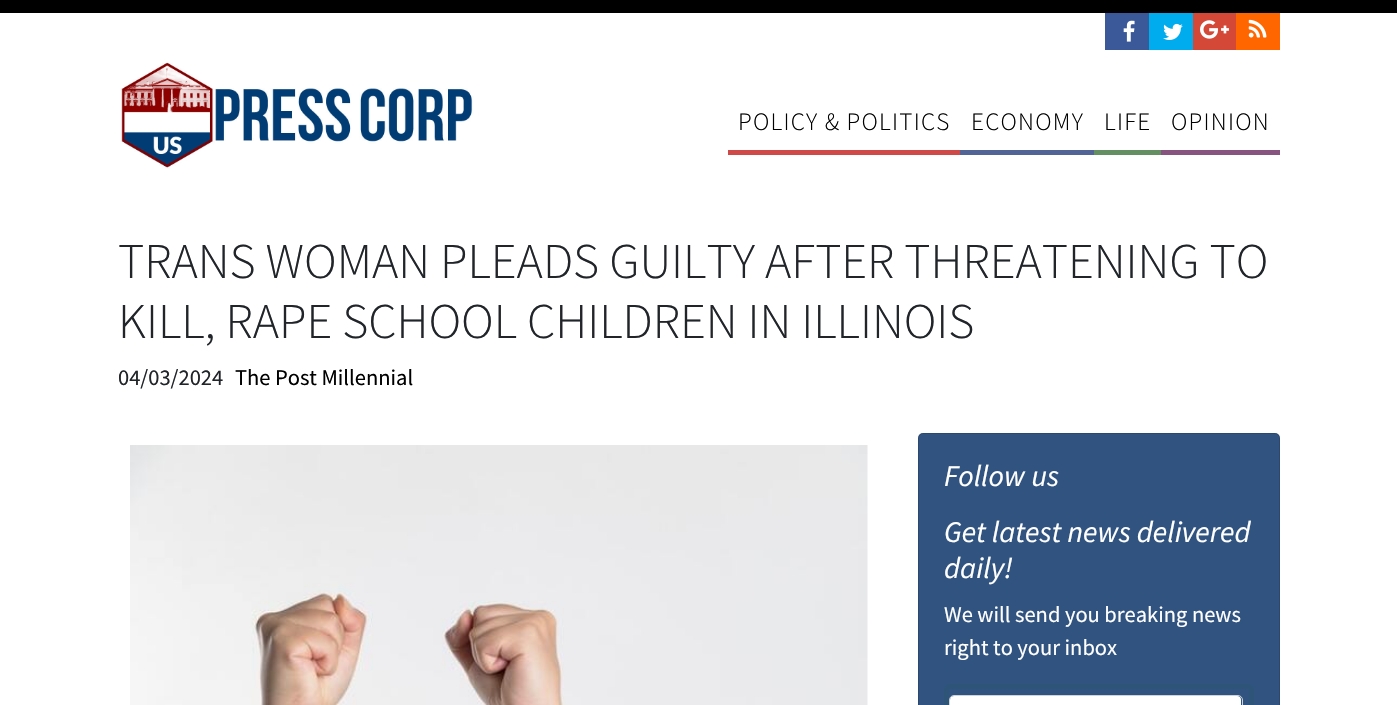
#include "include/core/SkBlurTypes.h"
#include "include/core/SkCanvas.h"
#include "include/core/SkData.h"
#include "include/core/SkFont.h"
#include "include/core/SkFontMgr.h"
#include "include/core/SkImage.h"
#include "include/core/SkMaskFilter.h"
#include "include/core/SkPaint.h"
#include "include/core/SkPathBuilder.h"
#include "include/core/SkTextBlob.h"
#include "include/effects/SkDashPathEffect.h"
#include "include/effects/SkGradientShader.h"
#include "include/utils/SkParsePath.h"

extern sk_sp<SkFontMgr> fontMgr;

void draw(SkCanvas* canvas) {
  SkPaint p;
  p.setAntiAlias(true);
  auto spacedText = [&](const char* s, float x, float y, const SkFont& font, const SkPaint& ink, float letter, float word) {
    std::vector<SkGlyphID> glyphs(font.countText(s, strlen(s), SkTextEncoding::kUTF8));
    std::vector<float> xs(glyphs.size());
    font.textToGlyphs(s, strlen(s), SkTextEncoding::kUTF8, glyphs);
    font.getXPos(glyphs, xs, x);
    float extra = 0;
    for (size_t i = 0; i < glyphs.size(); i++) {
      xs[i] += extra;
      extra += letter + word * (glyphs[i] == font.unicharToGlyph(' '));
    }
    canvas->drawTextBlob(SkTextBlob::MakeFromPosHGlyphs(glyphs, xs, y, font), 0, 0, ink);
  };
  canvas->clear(SK_ColorWHITE);
  p.setColor(SK_ColorBLACK);
  canvas->drawRect(SkRect::MakeLTRB(0, 0, 1397, 13), p);
  p.setColor(SkColorSetRGB(59, 89, 152));
  canvas->drawRect(SkRect::MakeLTRB(1105, 13, 1149, 50), p);
  canvas->drawImageRect(SkImages::DeferredFromEncodedData(SkData::MakeFromFileName("images/1.png")), SkRect::MakeLTRB(1123, 20, 1135, 42), SkSamplingOptions());
  p.setColor(SkColorSetRGB(0, 172, 237));
  canvas->drawRect(SkRect::MakeLTRB(1149, 13, 1193, 50), p);
  canvas->drawImageRect(SkImages::DeferredFromEncodedData(SkData::MakeFromFileName("images/2.png")), SkRect::MakeLTRB(1163, 23, 1183, 40), SkSamplingOptions());
  p.setColor(SkColorSetRGB(211, 72, 54));
  canvas->drawRect(SkRect::MakeLTRB(1193, 13, 1236, 50), p);
  canvas->drawImageRect(SkImages::DeferredFromEncodedData(SkData::MakeFromFileName("images/3.png")), SkRect::MakeLTRB(1200, 20, 1229, 39), SkSamplingOptions());
  p.setColor(SkColorSetRGB(255, 102, 0));
  canvas->drawRect(SkRect::MakeLTRB(1236, 13, 1280, 50), p);
  canvas->drawImageRect(SkImages::DeferredFromEncodedData(SkData::MakeFromFileName("images/4.png")), SkRect::MakeLTRB(1248, 19, 1267, 38), SkSamplingOptions());
  canvas->drawImageRect(SkImages::DeferredFromEncodedData(SkData::MakeFromFileName("images/5.png")), SkRect::MakeLTRB(120, 62, 474, 169), SkSamplingOptions());
  p.setColor(SkColorSetRGB(207, 73, 73));
  canvas->drawRect(SkRect::MakeLTRB(728, 150, 960, 155), p);
  p.setColor(SkColorSetRGB(81, 100, 149));
  canvas->drawRect(SkRect::MakeLTRB(960, 150, 1094, 155), p);
  p.setColor(SkColorSetRGB(100, 143, 99));
  canvas->drawRect(SkRect::MakeLTRB(1094, 150, 1161, 155), p);
  p.setColor(SkColorSetRGB(135, 83, 127));
  canvas->drawRect(SkRect::MakeLTRB(1161, 150, 1280, 155), p);
  canvas->drawImageRect(SkImages::DeferredFromEncodedData(SkData::MakeFromFileName("images/6.png")), SkRect::MakeLTRB(130, 445, 868, 705), SkSamplingOptions());
  p.setColor(SkColorSetRGB(49, 83, 128));
  canvas->drawRoundRect(SkRect::MakeLTRB(918, 433, 1280, 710), 5, 5, p);
  p.setStyle(SkPaint::kStroke_Style);
  p.setStrokeWidth(1);
  p.setColor(SkColorSetARGB(31, 0, 0, 0));
  canvas->drawRoundRect(SkRect::MakeLTRB(918.5f, 433.5f, 1279.5f, 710.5f), 4.5f, 4.5f, p);
  p.setStrokeWidth(5);
  p.setColor(SkColorSetRGB(46, 84, 120));
  canvas->drawRoundRect(SkRect::MakeLTRB(946.5f, 686.5f, 1251.5f, 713.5f), 3.5f, 3.5f, p);
  p.setStyle(SkPaint::kFill_Style);
  p.setColor(SK_ColorWHITE);
  canvas->drawRoundRect(SkRect::MakeLTRB(950, 696, 1241, 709), 4, 4, p);
  p.setStyle(SkPaint::kStroke_Style);
  p.setStrokeWidth(1);
  p.setColor(SkColorSetRGB(206, 212, 218));
  canvas->drawRoundRect(SkRect::MakeLTRB(949.5f, 695.5f, 1242.5f, 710.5f), 4.5f, 4.5f, p);
  SkFont font1(fontMgr->matchFamilyStyle("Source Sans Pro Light", SkFontStyle(300, SkFontStyle::kNormal_Width, SkFontStyle::kUpright_Slant)), 25);
  font1.setSubpixel(true);
  p.setStyle(SkPaint::kFill_Style);
  p.setColor(SK_ColorBLACK);
  spacedText("POLICY & POLITICS", 738, 130, font1, p, 1.25f, 0);
  spacedText("ECONOMY", 971, 130, font1, p, 1.25f, 0);
  spacedText("LIFE", 1104, 130, font1, p, 1.25f, 0);
  spacedText("OPINION", 1171, 130, font1, p, 1.25f, 0);
  SkFont font2(fontMgr->matchFamilyStyle("Source Sans Pro Light", SkFontStyle(300, SkFontStyle::kNormal_Width, SkFontStyle::kUpright_Slant)), 50);
  font2.setSubpixel(true);
  p.setColor(SkColorSetRGB(33, 37, 41));
  canvas->drawString("TRANS WOMAN PLEADS GUILTY AFTER THREATENING TO", 118, 278, font2, p);
  canvas->drawString("KILL, RAPE SCHOOL CHILDREN IN ILLINOIS", 118, 338, font2, p);
  SkFont font3(fontMgr->matchFamilyStyle("Source Sans Pro", SkFontStyle::Normal()), 22.5f);
  font3.setSubpixel(true);
  canvas->drawString("04/03/2024", 118, 385, font3, p);
  p.setColor(SK_ColorBLACK);
  canvas->drawString("The Post Millennial", 235, 385, font3, p);
  SkFont font4(fontMgr->matchFamilyStyle("Source Sans Pro", SkFontStyle::Italic()), 30);
  font4.setSubpixel(true);
  p.setColor(SK_ColorWHITE);
  canvas->drawString("Follow us", 944, 486, font4, p);
  canvas->drawString("Get latest news delivered", 944, 542, font4, p);
  canvas->drawString("daily!", 944, 578, font4, p);
  canvas->drawString("We will send you breaking news", 944, 622, font3, p);
  canvas->drawString("right to your inbox", 944, 655, font3, p);
}
